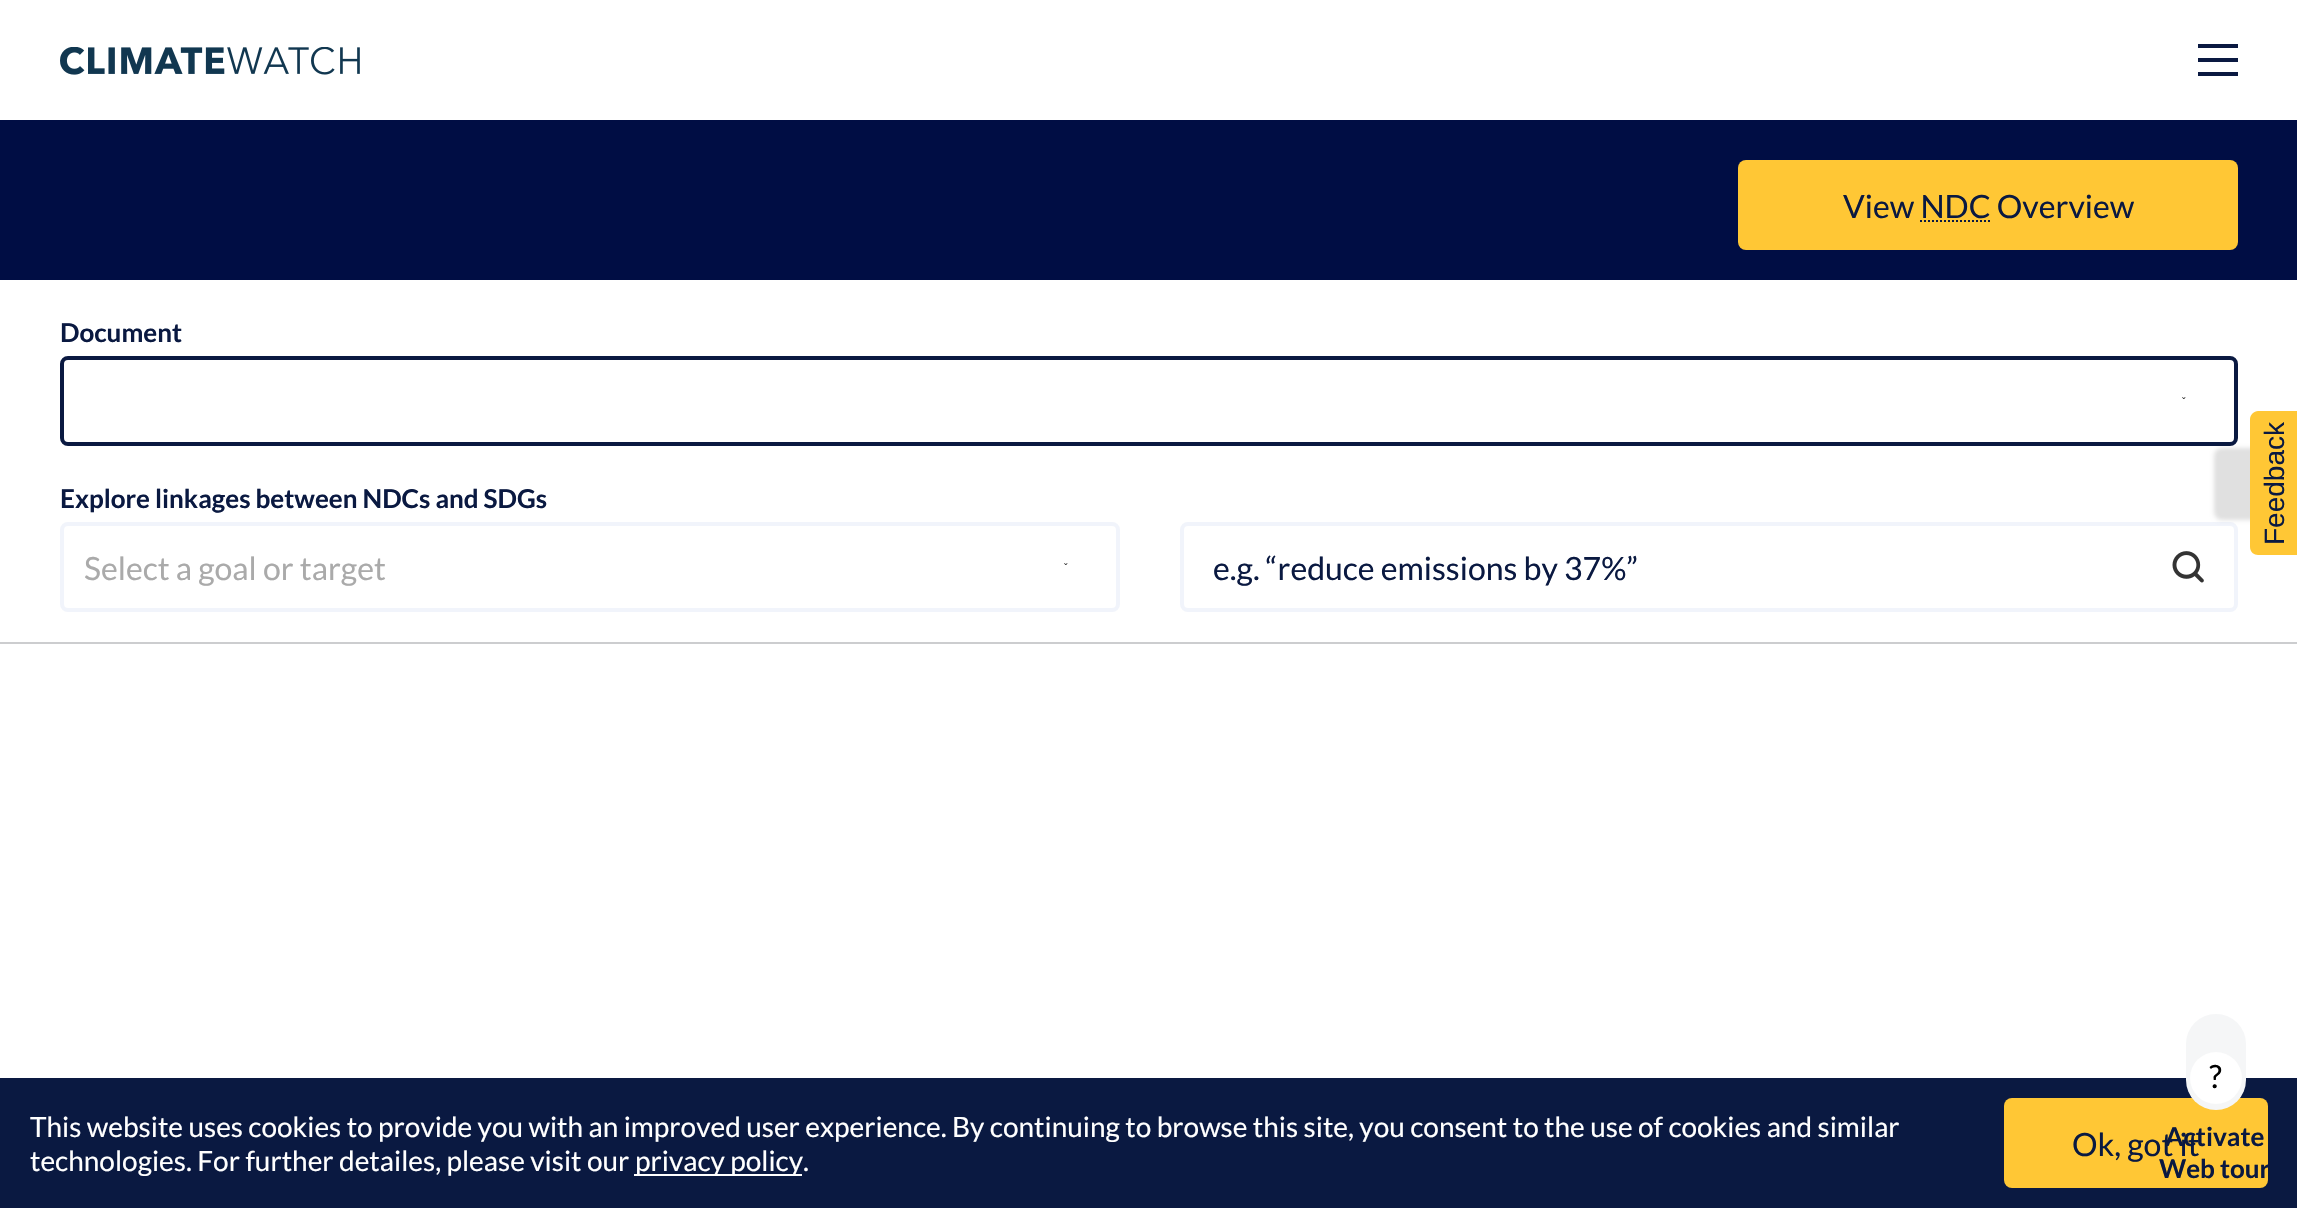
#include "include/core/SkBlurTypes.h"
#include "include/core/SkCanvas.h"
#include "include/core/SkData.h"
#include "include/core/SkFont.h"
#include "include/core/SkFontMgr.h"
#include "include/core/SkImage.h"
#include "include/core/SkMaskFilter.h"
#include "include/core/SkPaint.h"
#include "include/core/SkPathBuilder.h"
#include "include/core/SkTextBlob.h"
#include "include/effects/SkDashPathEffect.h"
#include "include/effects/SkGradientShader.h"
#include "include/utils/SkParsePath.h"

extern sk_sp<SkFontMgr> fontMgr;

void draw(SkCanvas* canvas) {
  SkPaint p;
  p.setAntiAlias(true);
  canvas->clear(SK_ColorWHITE);
  canvas->drawImageRect(SkImages::DeferredFromEncodedData(SkData::MakeFromFileName("images/1.png")), SkRect::MakeLTRB(60, 47, 360, 75), SkSamplingOptions());
  p.setColor(SkColorSetRGB(10, 25, 65));
  canvas->drawPath(SkPathBuilder().moveTo(2198, 44).lineTo(2238, 44).lineTo(2238, 48).lineTo(2198, 48).close().moveTo(2198, 58).lineTo(2238, 58).lineTo(2238, 62).lineTo(2198, 62).close().moveTo(2198, 72).lineTo(2238, 72).lineTo(2238, 76).lineTo(2198, 76).close().detach(), p);
  p.setColor(SkColorSetRGB(0, 13, 68));
  canvas->drawRect(SkRect::MakeLTRB(0, 120, 2297, 280), p);
  p.setColor(SkColorSetRGB(255, 199, 53));
  canvas->drawRoundRect(SkRect::MakeLTRB(1738, 160, 2238, 250), 8, 8, p);
  p.setStyle(SkPaint::kStroke_Style);
  p.setStrokeWidth(2);
  p.setColor(SkColorSetRGB(10, 25, 65));
  p.setPathEffect(SkDashPathEffect::Make({{2, 2}}, 0));
  canvas->drawPath(SkPathBuilder().moveTo(1920, 221).lineTo(1990, 221).detach(), p);
  p.setPathEffect(nullptr);
  p.setStyle(SkPaint::kFill_Style);
  p.setColor(SkColorSetRGB(204, 205, 207));
  canvas->drawRect(SkRect::MakeLTRB(0, 642, 2297, 644), p);
  p.setStyle(SkPaint::kStroke_Style);
  p.setStrokeWidth(4);
  p.setColor(SkColorSetRGB(10, 25, 65));
  canvas->drawRoundRect(SkRect::MakeLTRB(62, 358, 2236, 444), 6, 6, p);
  canvas->drawImageRect(SkImages::DeferredFromEncodedData(SkData::MakeFromFileName("images/2.png")), SkRect::MakeLTRB(2182, 397, 2186, 399), SkSamplingOptions());
  p.setColor(SkColorSetRGB(241, 244, 251));
  canvas->drawRoundRect(SkRect::MakeLTRB(62, 524, 1118, 610), 6, 6, p);
  canvas->drawImageRect(SkImages::DeferredFromEncodedData(SkData::MakeFromFileName("images/2.png")), SkRect::MakeLTRB(1064, 563, 1068, 565), SkSamplingOptions());
  canvas->drawRoundRect(SkRect::MakeLTRB(1182, 524, 2236, 610), 6, 6, p);
  canvas->drawImageRect(SkImages::DeferredFromEncodedData(SkData::MakeFromFileName("images/3.png")), SkRect::MakeLTRB(2172, 551, 2204, 583), SkSamplingOptions());
  p.setStyle(SkPaint::kFill_Style);
  p.setColor(SkColorSetARGB(31, 0, 0, 0));
  p.setMaskFilter(SkMaskFilter::MakeBlur(kNormal_SkBlurStyle, 2));
  canvas->drawRoundRect(SkRect::MakeLTRB(2214, 448, 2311, 520), 8, 8, p);
  p.setMaskFilter(nullptr);
  p.setColor(SkColorSetRGB(255, 199, 53));
  canvas->drawPath(SkPathBuilder().moveTo(2250, 547).lineTo(2250, 419).cubicTo(2250, 415, 2254, 411, 2258, 411).lineTo(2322, 411).lineTo(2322, 555).lineTo(2258, 555).cubicTo(2254, 555, 2250, 552, 2250, 547).close().detach(), p);
  p.setColor(SkColorSetRGB(10, 25, 65));
  canvas->drawRect(SkRect::MakeLTRB(0, 1078, 2297, 1208), p);
  p.setColor(SK_ColorWHITE);
  canvas->drawRect(SkRect::MakeLTRB(634, 1174, 802, 1176), p);
  p.setColor(SkColorSetRGB(255, 199, 53));
  canvas->drawRoundRect(SkRect::MakeLTRB(2004, 1098, 2268, 1188), 8, 8, p);
  p.setColor(SkColorSetRGB(245, 246, 247));
  canvas->drawRoundRect(SkRect::MakeLTRB(2186, 1014, 2246, 1110), 30, 30, p);
  p.setColor(SK_ColorWHITE);
  canvas->drawCircle(2216, 1078, 26, p);
  SkFont font1(fontMgr->matchFamilyStyle("Lato", SkFontStyle::Normal()), 32);
  font1.setSubpixel(true);
  p.setColor(SkColorSetRGB(10, 25, 65));
  canvas->drawString("View NDC Overview", 1843, 218, font1, p);
  SkFont font2(fontMgr->matchFamilyStyle("Lato", SkFontStyle::Bold()), 26);
  font2.setSubpixel(true);
  canvas->drawString("Document", 60, 342, font2, p);
  canvas->drawString("Explore linkages between NDCs and SDGs", 60, 508, font2, p);
  p.setColor(SkColorSetRGB(170, 170, 170));
  canvas->drawString("Select a goal or target", 84, 580, font1, p);
  p.setColor(SkColorSetRGB(10, 25, 65));
  canvas->drawString("e.g. “reduce emissions by 37%”", 1213, 580, font1, p);
  SkFont font3(fontMgr->matchFamilyStyle("Liberation Sans", SkFontStyle::Normal()), 28);
  font3.setSubpixel(true);
  canvas->save();
  canvas->rotate(-90, 2284, 545);
  canvas->drawString("Feedback", 2284, 545, font3, p);
  canvas->restore();
  SkFont font4(fontMgr->matchFamilyStyle("Lato", SkFontStyle::Normal()), 28);
  font4.setSubpixel(true);
  p.setColor(SK_ColorWHITE);
  canvas->drawString("This website uses cookies to provide you with an improved user experience. By continuing to browse this site, you consent to the use of cookies and similar", 30, 1137, font4, p);
  canvas->drawString("technologies. For further detailes, please visit our", 30, 1171, font4, p);
  canvas->drawString("privacy policy.", 635, 1171, font4, p);
  p.setColor(SkColorSetRGB(10, 25, 65));
  canvas->drawString("Ok, got it", 2072, 1156, font1, p);
  p.setColor(SK_ColorBLACK);
  canvas->drawString("?", 2209, 1088, font1, p);
  p.setColor(SkColorSetRGB(10, 25, 65));
  canvas->drawString("Activate", 2165, 1146, font2, p);
  canvas->drawString("Web tour", 2159, 1178, font2, p);
}
